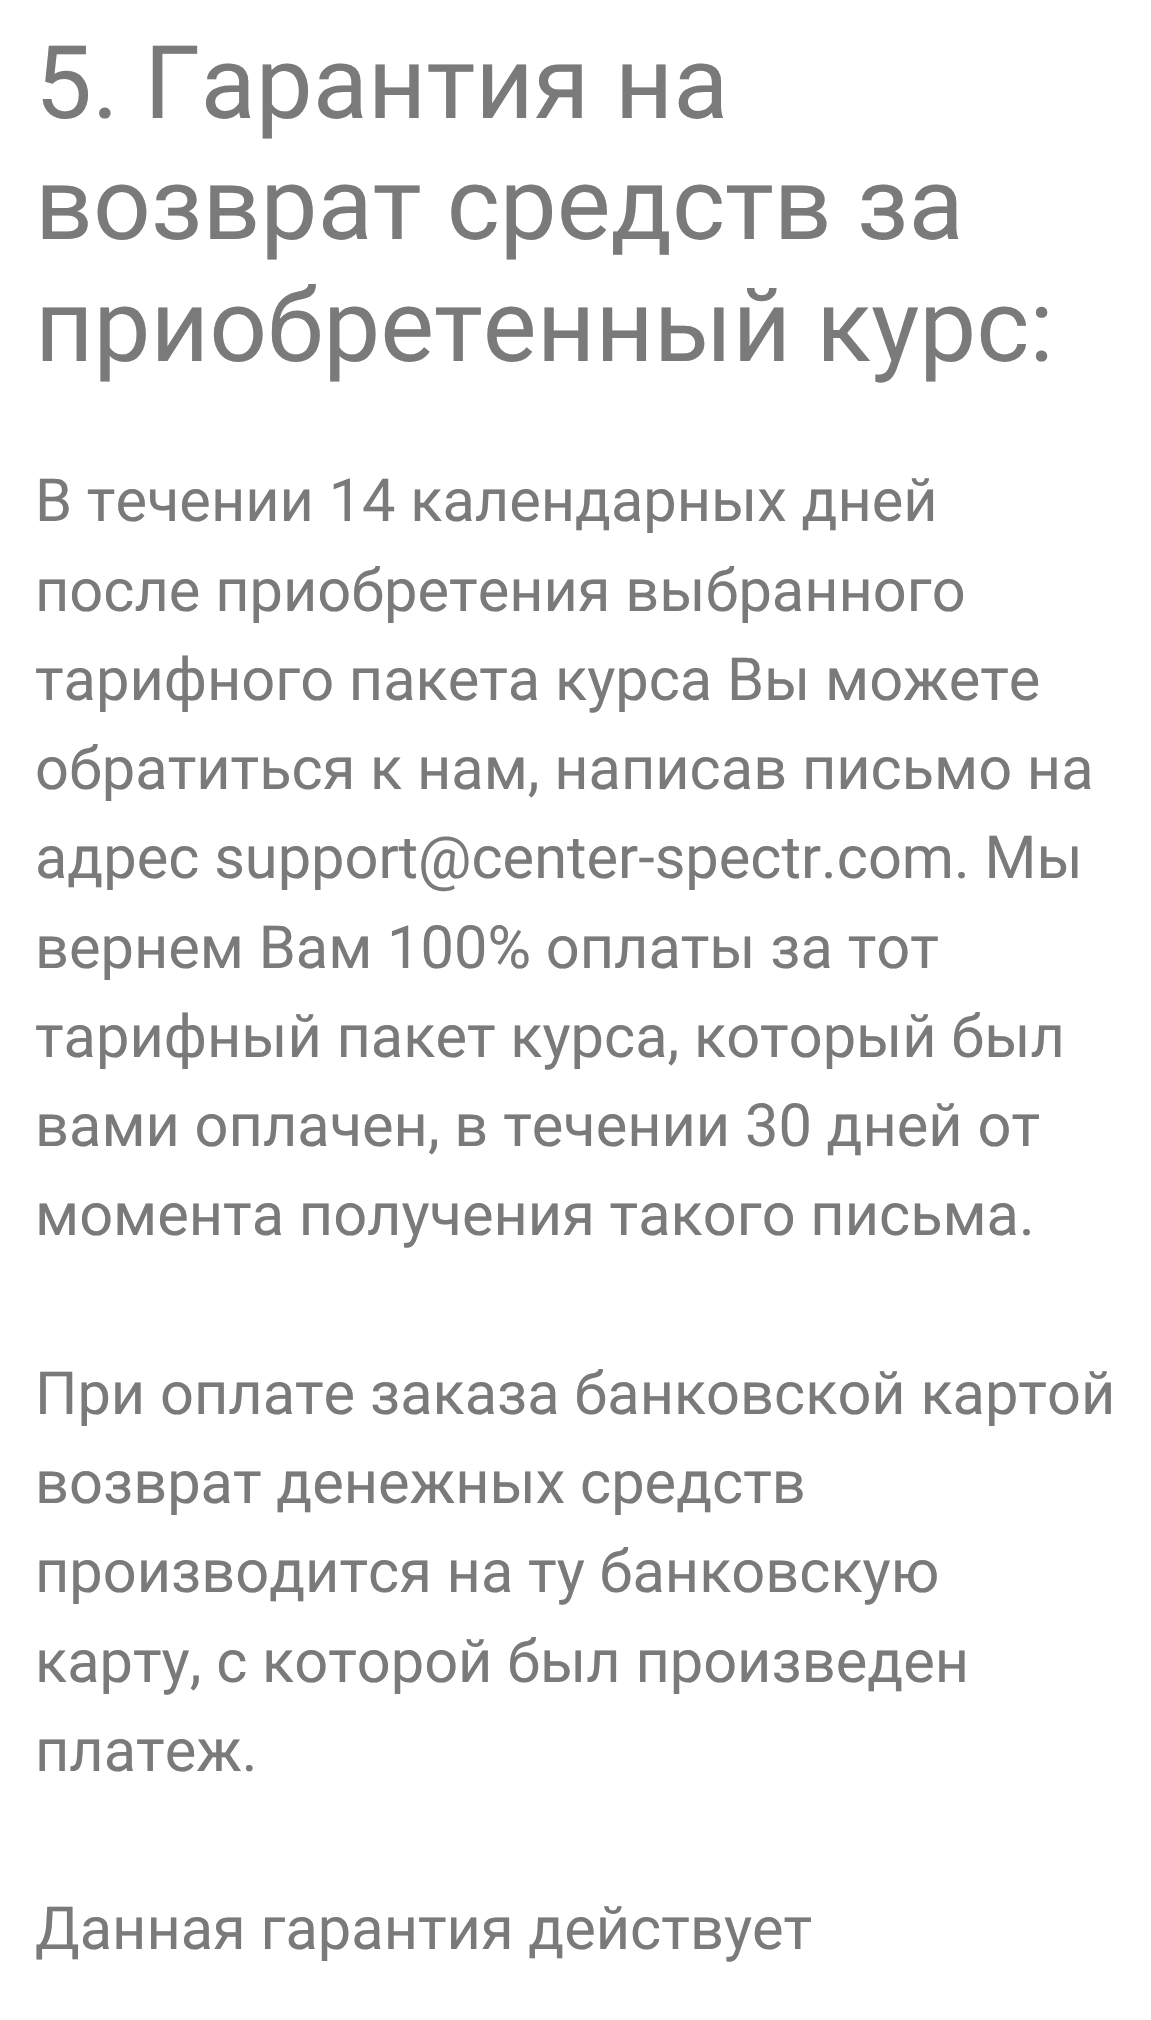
#include "include/core/SkBlurTypes.h"
#include "include/core/SkCanvas.h"
#include "include/core/SkData.h"
#include "include/core/SkFont.h"
#include "include/core/SkFontMgr.h"
#include "include/core/SkImage.h"
#include "include/core/SkMaskFilter.h"
#include "include/core/SkPaint.h"
#include "include/core/SkPathBuilder.h"
#include "include/core/SkTextBlob.h"
#include "include/effects/SkDashPathEffect.h"
#include "include/effects/SkGradientShader.h"
#include "include/utils/SkParsePath.h"

extern sk_sp<SkFontMgr> fontMgr;

void draw(SkCanvas* canvas) {
  SkPaint p;
  p.setAntiAlias(true);
  canvas->clear(SK_ColorWHITE);
  SkFont font1(fontMgr->matchFamilyStyle("Roboto", SkFontStyle::Normal()), 101.5f);
  font1.setSubpixel(true);
  p.setColor(SkColorSetRGB(122, 122, 122));
  canvas->drawString("5. Гарантия на", 35, 118, font1, p);
  canvas->drawString("возврат средств за", 35, 239, font1, p);
  canvas->drawString("приобретенный курс:", 35, 361, font1, p);
  SkFont font2(fontMgr->matchFamilyStyle("Roboto", SkFontStyle::Normal()), 59.5f);
  font2.setSubpixel(true);
  canvas->drawString("В течении 14 календарных дней", 35, 521, font2, p);
  canvas->drawString("после приобретения выбранного", 35, 611, font2, p);
  canvas->drawString("тарифного пакета курса Вы можете", 35, 700, font2, p);
  canvas->drawString("обратиться к нам, написав письмо на", 35, 789, font2, p);
  canvas->drawString("адрес support@center-spectr.com. Мы", 35, 878, font2, p);
  canvas->drawString("вернем Вам 100% оплаты за тот", 35, 968, font2, p);
  canvas->drawString("тарифный пакет курса, который был", 35, 1057, font2, p);
  canvas->drawString("вами оплачен, в течении 30 дней от", 35, 1146, font2, p);
  canvas->drawString("момента получения такого письма.", 35, 1235, font2, p);
  canvas->drawString("При оплате заказа банковской картой", 35, 1414, font2, p);
  canvas->drawString("возврат денежных средств", 35, 1503, font2, p);
  canvas->drawString("производится на ту банковскую", 35, 1592, font2, p);
  canvas->drawString("карту, с которой был произведен", 35, 1682, font2, p);
  canvas->drawString("платеж.", 35, 1771, font2, p);
  canvas->drawString("Данная гарантия действует", 35, 1949, font2, p);
}
